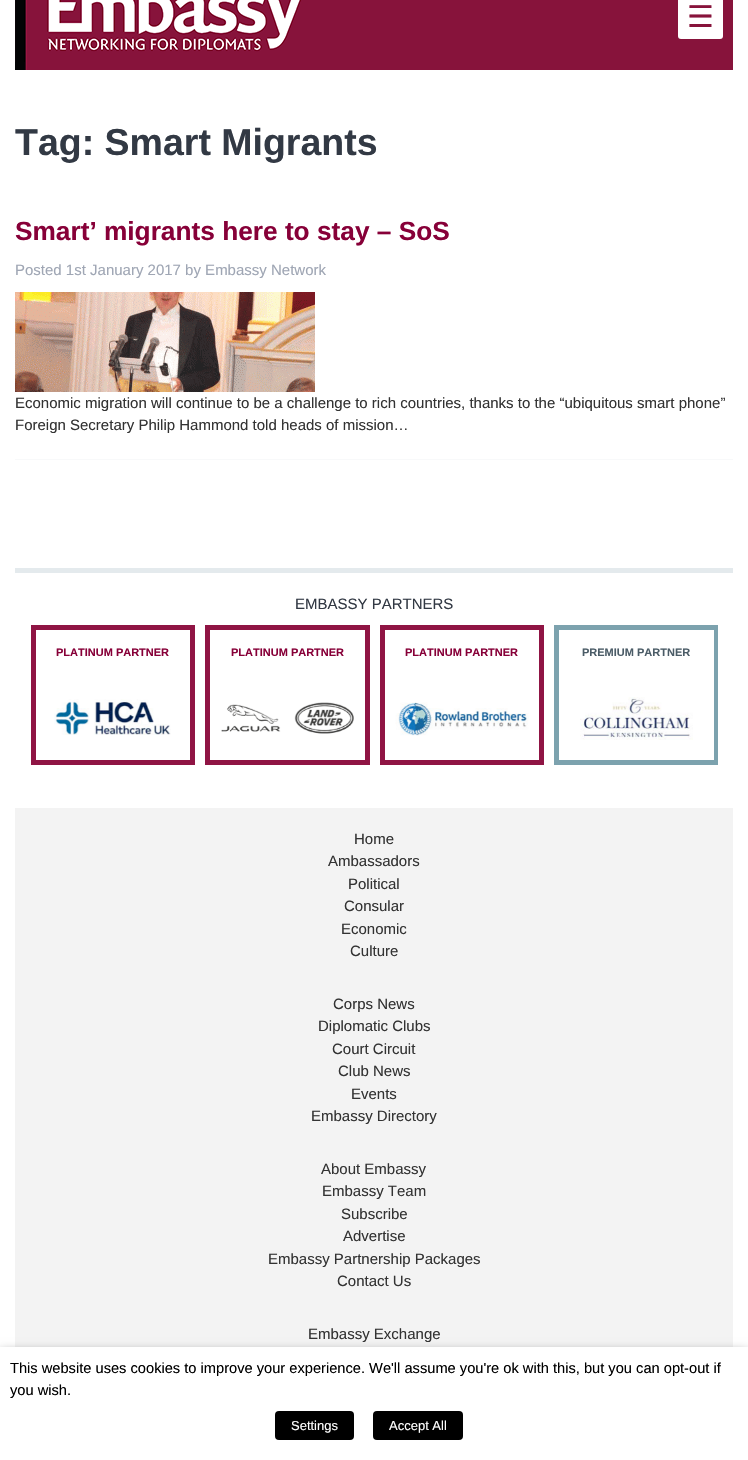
#include "include/core/SkBlurTypes.h"
#include "include/core/SkCanvas.h"
#include "include/core/SkData.h"
#include "include/core/SkFont.h"
#include "include/core/SkFontMgr.h"
#include "include/core/SkImage.h"
#include "include/core/SkMaskFilter.h"
#include "include/core/SkPaint.h"
#include "include/core/SkPathBuilder.h"
#include "include/core/SkTextBlob.h"
#include "include/effects/SkDashPathEffect.h"
#include "include/effects/SkGradientShader.h"
#include "include/utils/SkParsePath.h"

extern sk_sp<SkFontMgr> fontMgr;

void draw(SkCanvas* canvas) {
  SkPaint p;
  p.setAntiAlias(true);
  canvas->clear(SK_ColorWHITE);
  p.setColor(SkColorSetRGB(135, 19, 59));
  canvas->drawRect(SkRect::MakeLTRB(15, 0, 733, 70), p);
  canvas->drawImageRect(SkImages::DeferredFromEncodedData(SkData::MakeFromFileName("images/1.png")), SkRect::MakeLTRB(15, 0, 301, 70), SkSamplingOptions());
  p.setColor(SK_ColorWHITE);
  canvas->drawRoundRect(SkRect::MakeLTRB(678, -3, 723, 39), 3, 3, p);
  canvas->drawImageRect(SkImages::DeferredFromEncodedData(SkData::MakeFromFileName("images/2.png")), SkRect::MakeLTRB(15, 292, 315, 392), SkSamplingOptions());
  p.setColor(SkColorSetRGB(248, 249, 250));
  canvas->drawRect(SkRect::MakeLTRB(15, 459, 733, 460), p);
  p.setColor(SkColorSetRGB(228, 234, 237));
  canvas->drawRect(SkRect::MakeLTRB(15, 568, 733, 573), p);
  p.setStyle(SkPaint::kStroke_Style);
  p.setStrokeWidth(5);
  p.setColor(SkColorSetRGB(143, 20, 68));
  canvas->drawRect(SkRect::MakeLTRB(33.5f, 627.5f, 192.5f, 762.5f), p);
  canvas->drawImageRect(SkImages::DeferredFromEncodedData(SkData::MakeFromFileName("images/3.png")), SkRect::MakeLTRB(54, 699, 171, 735), SkSamplingOptions());
  canvas->drawRect(SkRect::MakeLTRB(207.5f, 627.5f, 367.5f, 762.5f), p);
  canvas->drawImageRect(SkImages::DeferredFromEncodedData(SkData::MakeFromFileName("images/4.png")), SkRect::MakeLTRB(221, 702, 354, 734), SkSamplingOptions());
  canvas->drawRect(SkRect::MakeLTRB(382.5f, 627.5f, 541.5f, 762.5f), p);
  canvas->drawImageRect(SkImages::DeferredFromEncodedData(SkData::MakeFromFileName("images/5.png")), SkRect::MakeLTRB(395, 702, 529, 736), SkSamplingOptions());
  canvas->save();
  canvas->clipRect(SkRect::MakeLTRB(30, 625, 718, 765));
  p.setColor(SkColorSetRGB(124, 162, 174));
  canvas->drawRect(SkRect::MakeLTRB(556.5f, 627.5f, 716.5f, 762.5f), p);
  canvas->restore();
  canvas->drawImageRect(SkImages::DeferredFromEncodedData(SkData::MakeFromFileName("images/6.png")), SkRect::MakeLTRB(580, 697, 693, 740), SkSamplingOptions());
  p.setStyle(SkPaint::kFill_Style);
  p.setColor(SkColorSetRGB(243, 243, 243));
  canvas->drawRect(SkRect::MakeLTRB(15, 808, 733, 1347), p);
  p.setColor(SkColorSetARGB(128, 0, 0, 0));
  p.setMaskFilter(SkMaskFilter::MakeBlur(kNormal_SkBlurStyle, 5));
  canvas->drawRect(SkRect::MakeLTRB(0, 1352, 748, 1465), p);
  p.setMaskFilter(nullptr);
  p.setColor(SK_ColorWHITE);
  canvas->drawRect(SkRect::MakeLTRB(0, 1347, 748, 1460), p);
  p.setColor(SK_ColorBLACK);
  canvas->drawRoundRect(SkRect::MakeLTRB(275, 1411, 354, 1440), 4, 4, p);
  canvas->drawRoundRect(SkRect::MakeLTRB(373, 1411, 463, 1440), 4, 4, p);
  SkFont font1(fontMgr->matchFamilyStyle("DejaVu Sans", SkFontStyle::Normal()), 30);
  font1.setSubpixel(true);
  p.setColor(SkColorSetRGB(135, 19, 59));
  canvas->drawString("☰", 687, 27, font1, p);
  SkFont font2(fontMgr->matchFamilyStyle("Liberation Sans", SkFontStyle::Bold()), 37.5f);
  font2.setSubpixel(true);
  p.setColor(SkColorSetRGB(50, 57, 68));
  canvas->drawString("Tag: Smart Migrants", 15, 155, font2, p);
  SkFont font3(fontMgr->matchFamilyStyle("Liberation Sans", SkFontStyle::Bold()), 26.25f);
  font3.setSubpixel(true);
  p.setColor(SkColorSetRGB(135, 0, 56));
  canvas->drawString("Smart’ migrants here to stay – SoS", 15, 240, font3, p);
  SkFont font4(fontMgr->matchFamilyStyle("Liberation Sans", SkFontStyle::Normal()), 15);
  font4.setSubpixel(true);
  p.setColor(SkColorSetRGB(159, 166, 180));
  canvas->drawString("Posted 1st January 2017 by Embassy Network", 15, 275, font4, p);
  p.setColor(SkColorSetRGB(51, 51, 51));
  canvas->drawString("Economic migration will continue to be a challenge to rich countries, thanks to the “ubiquitous smart phone”", 15, 408, font4, p);
  canvas->drawString("Foreign Secretary Philip Hammond told heads of mission…", 15, 430, font4, p);
  p.setColor(SkColorSetRGB(50, 57, 68));
  canvas->drawString("EMBASSY PARTNERS", 295, 609, font4, p);
  SkFont font5(fontMgr->matchFamilyStyle("Liberation Sans", SkFontStyle::Bold()), 11);
  font5.setSubpixel(true);
  p.setColor(SkColorSetRGB(135, 0, 56));
  canvas->drawString("PLATINUM PARTNER", 56, 656, font5, p);
  canvas->drawString("PLATINUM PARTNER", 231, 656, font5, p);
  canvas->drawString("PLATINUM PARTNER", 405, 656, font5, p);
  p.setColor(SkColorSetRGB(75, 92, 103));
  canvas->drawString("PREMIUM PARTNER", 582, 656, font5, p);
  p.setColor(SkColorSetRGB(51, 51, 51));
  canvas->drawString("Home", 354, 844, font4, p);
  canvas->drawString("Ambassadors", 328, 866, font4, p);
  canvas->drawString("Political", 348, 889, font4, p);
  canvas->drawString("Consular", 344, 911, font4, p);
  canvas->drawString("Economic", 341, 934, font4, p);
  canvas->drawString("Culture", 350, 956, font4, p);
  canvas->drawString("Corps News", 333, 1009, font4, p);
  canvas->drawString("Diplomatic Clubs", 318, 1031, font4, p);
  canvas->drawString("Court Circuit", 332, 1054, font4, p);
  canvas->drawString("Club News", 338, 1076, font4, p);
  canvas->drawString("Events", 351, 1099, font4, p);
  canvas->drawString("Embassy Directory", 311, 1121, font4, p);
  canvas->drawString("About Embassy", 321, 1174, font4, p);
  canvas->drawString("Embassy Team", 322, 1196, font4, p);
  canvas->drawString("Subscribe", 341, 1219, font4, p);
  canvas->drawString("Advertise", 343, 1241, font4, p);
  canvas->drawString("Embassy Partnership Packages", 268, 1264, font4, p);
  canvas->drawString("Contact Us", 337, 1286, font4, p);
  canvas->drawString("Embassy Exchange", 308, 1339, font4, p);
  SkFont font6(fontMgr->matchFamilyStyle("Liberation Sans", SkFontStyle::Normal()), 14.65f);
  font6.setSubpixel(true);
  p.setColor(SK_ColorBLACK);
  canvas->drawString("This website uses cookies to improve your experience. We'll assume you're ok with this, but you can opt-out if", 10, 1373, font6, p);
  canvas->drawString("you wish.", 10, 1395, font6, p);
  SkFont font7(fontMgr->matchFamilyStyle("Liberation Sans", SkFontStyle::Normal()), 13);
  font7.setSubpixel(true);
  p.setColor(SK_ColorWHITE);
  canvas->drawString("Settings", 291, 1430, font7, p);
  canvas->drawString("Accept All", 389, 1430, font7, p);
}
